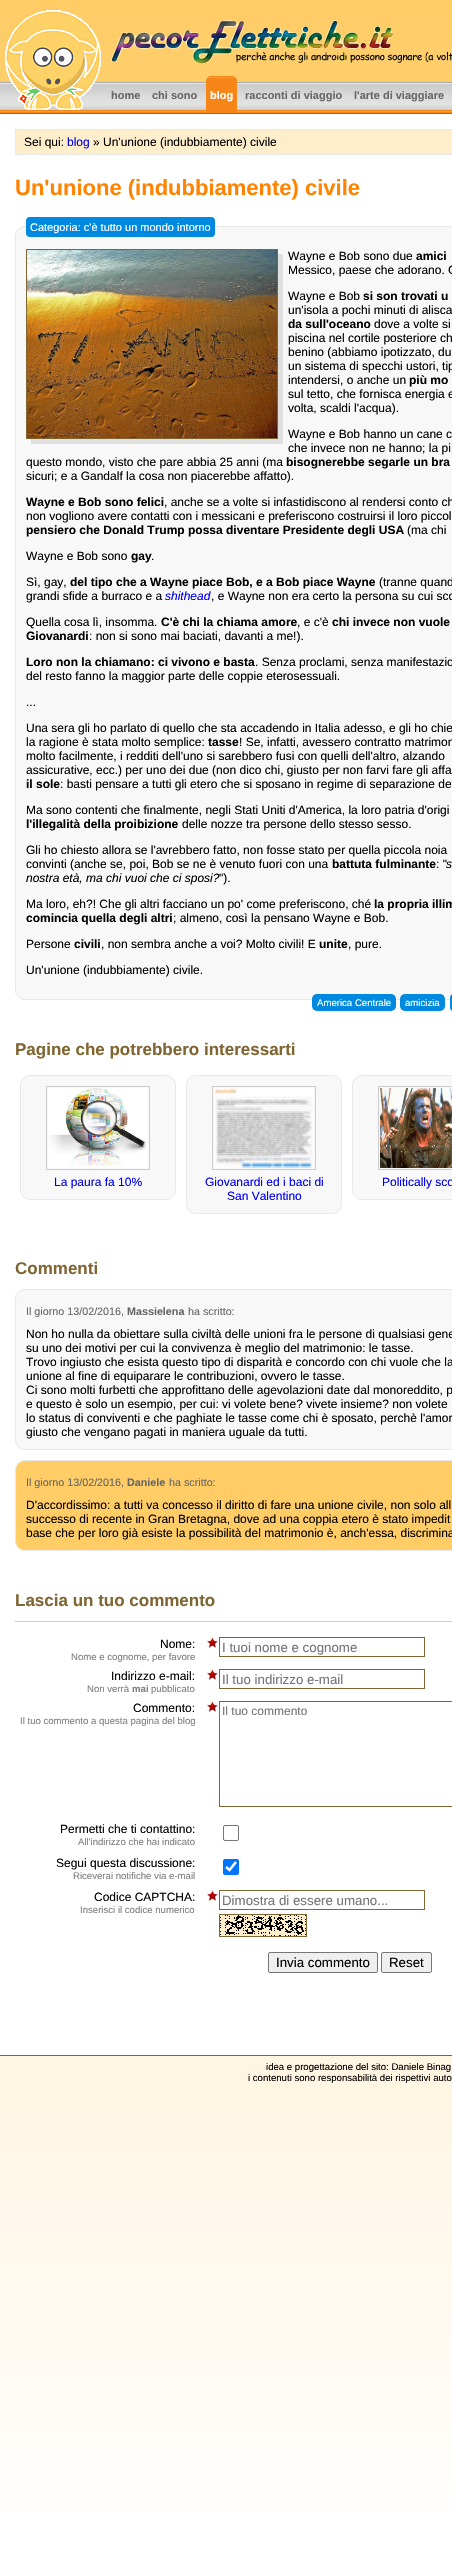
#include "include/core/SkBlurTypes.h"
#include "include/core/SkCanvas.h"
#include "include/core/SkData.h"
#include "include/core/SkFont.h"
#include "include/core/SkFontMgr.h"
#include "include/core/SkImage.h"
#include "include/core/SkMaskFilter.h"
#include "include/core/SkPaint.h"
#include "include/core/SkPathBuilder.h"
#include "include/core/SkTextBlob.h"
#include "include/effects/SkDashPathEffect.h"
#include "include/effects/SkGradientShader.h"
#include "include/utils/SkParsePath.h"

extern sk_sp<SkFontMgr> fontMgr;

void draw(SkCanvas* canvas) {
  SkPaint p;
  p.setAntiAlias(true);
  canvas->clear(SK_ColorWHITE);
  {
    const SkColor colors[] = {SkColorSetRGB(255, 204, 102), SK_ColorWHITE};
    const float stops[] = {0, 1};
    const SkPoint ends[] = {{226, 0}, {226, 2556}};
    p.setShader(SkGradientShader::MakeLinear(ends, colors, stops, 2, SkTileMode::kClamp));
    p.setAlpha(255);
  }
  canvas->drawRect(SkRect::MakeLTRB(0, 0, 452, 2514), p);
  canvas->drawImageRect(SkImages::DeferredFromEncodedData(SkData::MakeFromFileName("images/3.png")), SkRect::MakeLTRB(0, 82, 452, 114), SkSamplingOptions());
  canvas->drawImageRect(SkImages::DeferredFromEncodedData(SkData::MakeFromFileName("images/1.png")), SkRect::MakeLTRB(5, 10, 101, 110), SkSamplingOptions());
  canvas->drawImageRect(SkImages::DeferredFromEncodedData(SkData::MakeFromFileName("images/2.png")), SkRect::MakeLTRB(111, 19, 452, 65), SkSamplingOptions());
  canvas->drawImageRect(SkImages::DeferredFromEncodedData(SkData::MakeFromFileName("images/4.png")), SkRect::MakeLTRB(206, 76, 237, 112), SkSamplingOptions());
  p.setShader(nullptr);
  p.setColor(SK_ColorWHITE);
  canvas->drawRect(SkRect::MakeLTRB(0, 114, 452, 2055), p);
  p.setColor(SkColorSetRGB(255, 238, 204));
  canvas->drawRect(SkRect::MakeLTRB(15.5f, 129.5f, 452.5f, 154.5f), p);
  p.setStyle(SkPaint::kStroke_Style);
  p.setStrokeWidth(1);
  p.setColor(SkColorSetRGB(232, 232, 232));
  canvas->drawRect(SkRect::MakeLTRB(15.5f, 129.5f, 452.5f, 154.5f), p);
  p.setStyle(SkPaint::kFill_Style);
  p.setColor(SkColorSetRGB(248, 248, 248));
  canvas->drawRoundRect(SkRect::MakeLTRB(15.5f, 226.5f, 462.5f, 999.5f), 9.5f, 9.5f, p);
  p.setStyle(SkPaint::kStroke_Style);
  p.setColor(SkColorSetRGB(232, 232, 232));
  canvas->drawRoundRect(SkRect::MakeLTRB(15.5f, 226.5f, 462.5f, 999.5f), 9.5f, 9.5f, p);
  p.setStyle(SkPaint::kFill_Style);
  p.setColor(SkColorSetRGB(0, 137, 224));
  canvas->drawRoundRect(SkRect::MakeLTRB(26, 217, 215, 237), 4, 4, p);
  p.setColor(SkColorSetRGB(223, 223, 223));
  canvas->drawPath(SkPathBuilder().moveTo(31, 439).lineTo(31, 444).lineTo(283, 444).lineTo(283, 254).lineTo(278, 254).lineTo(278, 439).close().detach(), p);
  p.setStyle(SkPaint::kStroke_Style);
  p.setColor(SkColorSetRGB(128, 102, 51));
  canvas->drawRect(SkRect::MakeLTRB(26.5f, 249.5f, 277.5f, 438.5f), p);
  canvas->drawImageRect(SkImages::DeferredFromEncodedData(SkData::MakeFromFileName("images/5.png")), SkRect::MakeLTRB(27, 250, 277, 438), SkSamplingOptions());
  p.setStyle(SkPaint::kFill_Style);
  p.setColor(SkColorSetRGB(0, 137, 224));
  canvas->drawRoundRect(SkRect::MakeLTRB(312, 994, 396, 1011), 5, 5, p);
  canvas->drawRoundRect(SkRect::MakeLTRB(400, 994, 445, 1011), 5, 5, p);
  canvas->drawRoundRect(SkRect::MakeLTRB(450, 994, 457, 1011), 5, 5, p);
  p.setColor(SkColorSetRGB(248, 248, 248));
  canvas->drawRoundRect(SkRect::MakeLTRB(20.5f, 1075.5f, 175.5f, 1199.5f), 9.5f, 9.5f, p);
  p.setStyle(SkPaint::kStroke_Style);
  p.setColor(SkColorSetRGB(232, 232, 232));
  canvas->drawRoundRect(SkRect::MakeLTRB(20.5f, 1075.5f, 175.5f, 1199.5f), 9.5f, 9.5f, p);
  p.setColor(SkColorSetRGB(204, 204, 204));
  canvas->drawRect(SkRect::MakeLTRB(46.5f, 1086.5f, 149.5f, 1169.5f), p);
  canvas->drawImageRect(SkImages::DeferredFromEncodedData(SkData::MakeFromFileName("images/6.png")), SkRect::MakeLTRB(48, 1088, 148, 1168), SkSamplingOptions());
  p.setStyle(SkPaint::kFill_Style);
  p.setColor(SkColorSetRGB(248, 248, 248));
  canvas->drawRoundRect(SkRect::MakeLTRB(186.5f, 1075.5f, 341.5f, 1213.5f), 9.5f, 9.5f, p);
  p.setStyle(SkPaint::kStroke_Style);
  p.setColor(SkColorSetRGB(232, 232, 232));
  canvas->drawRoundRect(SkRect::MakeLTRB(186.5f, 1075.5f, 341.5f, 1213.5f), 9.5f, 9.5f, p);
  p.setColor(SkColorSetRGB(204, 204, 204));
  canvas->drawRect(SkRect::MakeLTRB(212.5f, 1086.5f, 315.5f, 1169.5f), p);
  canvas->drawImageRect(SkImages::DeferredFromEncodedData(SkData::MakeFromFileName("images/7.png")), SkRect::MakeLTRB(214, 1088, 314, 1168), SkSamplingOptions());
  p.setStyle(SkPaint::kFill_Style);
  p.setColor(SkColorSetRGB(248, 248, 248));
  canvas->drawRoundRect(SkRect::MakeLTRB(352.5f, 1075.5f, 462.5f, 1199.5f), 9.5f, 9.5f, p);
  p.setStyle(SkPaint::kStroke_Style);
  p.setColor(SkColorSetRGB(232, 232, 232));
  canvas->drawRoundRect(SkRect::MakeLTRB(352.5f, 1075.5f, 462.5f, 1199.5f), 9.5f, 9.5f, p);
  p.setColor(SkColorSetRGB(204, 204, 204));
  canvas->drawRect(SkRect::MakeLTRB(378.5f, 1086.5f, 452.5f, 1169.5f), p);
  canvas->drawImageRect(SkImages::DeferredFromEncodedData(SkData::MakeFromFileName("images/8.png")), SkRect::MakeLTRB(380, 1088, 452, 1168), SkSamplingOptions());
  p.setStyle(SkPaint::kFill_Style);
  p.setColor(SkColorSetRGB(248, 248, 248));
  canvas->drawRoundRect(SkRect::MakeLTRB(15.5f, 1289.5f, 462.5f, 1449.5f), 9.5f, 9.5f, p);
  p.setStyle(SkPaint::kStroke_Style);
  p.setColor(SkColorSetRGB(232, 232, 232));
  canvas->drawRoundRect(SkRect::MakeLTRB(15.5f, 1289.5f, 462.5f, 1449.5f), 9.5f, 9.5f, p);
  p.setStyle(SkPaint::kFill_Style);
  p.setColor(SkColorSetRGB(255, 204, 102));
  canvas->drawRoundRect(SkRect::MakeLTRB(15.5f, 1460.5f, 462.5f, 1550.5f), 9.5f, 9.5f, p);
  p.setStyle(SkPaint::kStroke_Style);
  p.setColor(SkColorSetRGB(232, 232, 232));
  canvas->drawRoundRect(SkRect::MakeLTRB(15.5f, 1460.5f, 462.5f, 1550.5f), 9.5f, 9.5f, p);
  p.setStyle(SkPaint::kFill_Style);
  p.setColor(SkColorSetRGB(204, 204, 204));
  canvas->drawRect(SkRect::MakeLTRB(15, 1621, 452, 1622), p);
  canvas->drawImageRect(SkImages::DeferredFromEncodedData(SkData::MakeFromFileName("images/9.png")), SkRect::MakeLTRB(207, 1637, 219, 1649), SkSamplingOptions());
  p.setStyle(SkPaint::kStroke_Style);
  p.setColor(SkColorSetRGB(128, 102, 51));
  canvas->drawRect(SkRect::MakeLTRB(219.5f, 1637.5f, 424.5f, 1656.5f), p);
  canvas->drawImageRect(SkImages::DeferredFromEncodedData(SkData::MakeFromFileName("images/9.png")), SkRect::MakeLTRB(207, 1669, 219, 1681), SkSamplingOptions());
  canvas->drawRect(SkRect::MakeLTRB(219.5f, 1669.5f, 424.5f, 1688.5f), p);
  canvas->drawImageRect(SkImages::DeferredFromEncodedData(SkData::MakeFromFileName("images/9.png")), SkRect::MakeLTRB(207, 1701, 219, 1713), SkSamplingOptions());
  canvas->drawRect(SkRect::MakeLTRB(219.5f, 1701.5f, 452.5f, 1806.5f), p);
  p.setColor(SkColorSetRGB(118, 118, 118));
  canvas->drawRoundRect(SkRect::MakeLTRB(223.5f, 1825.5f, 238.5f, 1840.5f), 1.5f, 1.5f, p);
  p.setStyle(SkPaint::kFill_Style);
  p.setColor(SkColorSetRGB(0, 117, 255));
  canvas->drawRoundRect(SkRect::MakeLTRB(223, 1859, 239, 1875), 2, 2, p);
  p.setStyle(SkPaint::kStroke_Style);
  p.setStrokeWidth(2.6f);
  p.setColor(SK_ColorWHITE);
  canvas->drawPath(SkPathBuilder().moveTo(226, 1867).lineTo(229.5f, 1870).lineTo(236, 1862).detach(), p);
  canvas->drawImageRect(SkImages::DeferredFromEncodedData(SkData::MakeFromFileName("images/9.png")), SkRect::MakeLTRB(207, 1890, 219, 1902), SkSamplingOptions());
  p.setStrokeWidth(1);
  p.setColor(SkColorSetRGB(128, 102, 51));
  canvas->drawRect(SkRect::MakeLTRB(219.5f, 1914.5f, 306.5f, 1936.5f), p);
  canvas->drawImageRect(SkImages::DeferredFromEncodedData(SkData::MakeFromFileName("images/10.png")), SkRect::MakeLTRB(220, 1915, 306, 1936), SkSamplingOptions());
  canvas->drawRect(SkRect::MakeLTRB(219.5f, 1890.5f, 424.5f, 1909.5f), p);
  p.setStyle(SkPaint::kFill_Style);
  p.setColor(SkColorSetRGB(239, 239, 239));
  canvas->drawRoundRect(SkRect::MakeLTRB(268.5f, 1952.5f, 377.5f, 1972.5f), 1.5f, 1.5f, p);
  p.setStyle(SkPaint::kStroke_Style);
  p.setColor(SkColorSetRGB(118, 118, 118));
  canvas->drawRoundRect(SkRect::MakeLTRB(268.5f, 1952.5f, 377.5f, 1972.5f), 1.5f, 1.5f, p);
  p.setStyle(SkPaint::kFill_Style);
  p.setColor(SkColorSetRGB(239, 239, 239));
  canvas->drawRoundRect(SkRect::MakeLTRB(381.5f, 1952.5f, 431.5f, 1972.5f), 1.5f, 1.5f, p);
  p.setStyle(SkPaint::kStroke_Style);
  p.setColor(SkColorSetRGB(118, 118, 118));
  canvas->drawRoundRect(SkRect::MakeLTRB(381.5f, 1952.5f, 431.5f, 1972.5f), 1.5f, 1.5f, p);
  p.setStyle(SkPaint::kFill_Style);
  p.setColor(SkColorSetRGB(128, 102, 51));
  canvas->drawRect(SkRect::MakeLTRB(0, 2055, 452, 2056), p);
  SkFont font1(fontMgr->matchFamilyStyle("Liberation Sans", SkFontStyle::Bold()), 11);
  font1.setSubpixel(true);
  p.setColor(SkColorSetRGB(102, 102, 102));
  canvas->drawString("home", 111, 99, font1, p);
  canvas->drawString("chi sono", 152, 99, font1, p);
  p.setColor(SK_ColorWHITE);
  canvas->drawString("blog", 210, 99, font1, p);
  p.setColor(SkColorSetRGB(102, 102, 102));
  canvas->drawString("racconti di viaggio", 245, 99, font1, p);
  canvas->drawString("l'arte di viaggiare", 354, 99, font1, p);
  SkFont font2(fontMgr->matchFamilyStyle("Liberation Sans", SkFontStyle::Normal()), 12);
  font2.setSubpixel(true);
  p.setColor(SK_ColorBLACK);
  canvas->drawString("Sei qui:", 24, 146, font2, p);
  p.setColor(SkColorSetRGB(0, 0, 238));
  canvas->drawString("blog", 67, 146, font2, p);
  p.setColor(SK_ColorBLACK);
  canvas->drawString("» Un'unione (indubbiamente) civile", 93, 146, font2, p);
  SkFont font3(fontMgr->matchFamilyStyle("Liberation Sans", SkFontStyle::Bold()), 22);
  font3.setSubpixel(true);
  p.setColor(SkColorSetRGB(255, 131, 0));
  canvas->drawString("Un'unione (indubbiamente) civile", 15, 195, font3, p);
  SkFont font4(fontMgr->matchFamilyStyle("Liberation Sans", SkFontStyle::Normal()), 11);
  font4.setSubpixel(true);
  p.setColor(SK_ColorWHITE);
  canvas->drawString("Categoria: c'è tutto un mondo intorno", 30, 231, font4, p);
  p.setColor(SK_ColorBLACK);
  canvas->drawString("Wayne e Bob sono due", 288, 260, font2, p);
  SkFont font5(fontMgr->matchFamilyStyle("Liberation Sans", SkFontStyle::Bold()), 12);
  font5.setSubpixel(true);
  canvas->drawString("amici", 416, 260, font5, p);
  canvas->drawString("Messico, paese che adorano. C", 288, 274, font2, p);
  canvas->drawString("Wayne e Bob", 288, 300, font2, p);
  canvas->drawString("si son trovati u", 363, 300, font5, p);
  canvas->drawString("un'isola a pochi minuti di alisca", 288, 314, font2, p);
  canvas->drawString("da sull'oceano", 288, 328, font5, p);
  canvas->drawString("dove a volte si", 374, 328, font2, p);
  canvas->drawString("piscina nel cortile posteriore ch", 288, 342, font2, p);
  canvas->drawString("benino (abbiamo ipotizzato, du", 288, 356, font2, p);
  canvas->drawString("un sistema di specchi ustori, tip", 288, 370, font2, p);
  canvas->drawString("intendersi, o anche un", 288, 384, font2, p);
  canvas->drawString("più mo", 409, 384, font5, p);
  canvas->drawString("sul tetto, che fornisca energia e", 288, 398, font2, p);
  canvas->drawString("volta, scaldi l'acqua).", 288, 412, font2, p);
  canvas->drawString("Wayne e Bob hanno un cane c", 288, 438, font2, p);
  canvas->drawString("che invece non ne hanno; la pi", 288, 452, font2, p);
  canvas->drawString("questo mondo, visto che pare abbia 25 anni (ma", 26, 466, font2, p);
  canvas->drawString("bisognerebbe segarle un bra", 286, 466, font5, p);
  canvas->drawString("sicuri; e a Gandalf la cosa non piacerebbe affatto).", 26, 480, font2, p);
  canvas->drawString("Wayne e Bob sono felici", 26, 506, font5, p);
  canvas->drawString(", anche se a volte si infastidiscono al rendersi conto ch", 164, 506, font2, p);
  canvas->drawString("non vogliono avere contatti con i messicani e preferiscono costruirsi il loro piccol", 26, 520, font2, p);
  canvas->drawString("pensiero che Donald Trump possa diventare Presidente degli USA", 26, 534, font5, p);
  canvas->drawString("(ma chi", 407, 534, font2, p);
  canvas->drawString("Wayne e Bob sono", 26, 560, font2, p);
  canvas->drawString("gay", 131, 560, font5, p);
  canvas->drawString(".", 151, 560, font2, p);
  canvas->drawString("Sì, gay,", 26, 586, font2, p);
  canvas->drawString("del tipo che a Wayne piace Bob, e a Bob piace Wayne", 70, 586, font5, p);
  canvas->drawString("(tranne quand", 379, 586, font2, p);
  canvas->drawString("grandi sfide a burraco e a", 26, 600, font2, p);
  SkFont font6(fontMgr->matchFamilyStyle("Liberation Sans", SkFontStyle::Italic()), 12);
  font6.setSubpixel(true);
  p.setColor(SkColorSetRGB(0, 0, 238));
  canvas->drawString("shithead", 165, 600, font6, p);
  p.setColor(SK_ColorBLACK);
  canvas->drawString(", e Wayne non era certo la persona su cui sco", 211, 600, font2, p);
  canvas->drawString("Quella cosa lì, insomma.", 26, 626, font2, p);
  canvas->drawString("C'è chi la chiama amore", 161, 626, font5, p);
  canvas->drawString(", e c'è", 297, 626, font2, p);
  canvas->drawString("chi invece non vuole", 332, 626, font5, p);
  canvas->drawString("Giovanardi", 26, 640, font5, p);
  canvas->drawString(": non si sono mai baciati, davanti a me!).", 89, 640, font2, p);
  canvas->drawString("Loro non la chiamano: ci vivono e basta", 26, 666, font5, p);
  canvas->drawString(". Senza proclami, senza manifestazio", 255, 666, font2, p);
  canvas->drawString("del resto fanno la maggior parte delle coppie eterosessuali.", 26, 680, font2, p);
  canvas->drawString("...", 26, 706, font2, p);
  canvas->drawString("Una sera gli ho parlato di quello che sta accadendo in Italia adesso, e gli ho chie", 26, 732, font2, p);
  canvas->drawString("la ragione è stata molto semplice:", 26, 746, font2, p);
  canvas->drawString("tasse", 208, 746, font5, p);
  canvas->drawString("! Se, infatti, avessero contratto matrimon", 239, 746, font2, p);
  canvas->drawString("molto facilmente, i redditi dell'uno si sarebbero fusi con quelli dell'altro, alzando", 26, 760, font2, p);
  canvas->drawString("assicurative, ecc.) per uno dei due (non dico chi, giusto per non farvi fare gli affa", 26, 774, font2, p);
  canvas->drawString("il sole", 26, 788, font5, p);
  canvas->drawString(": basti pensare a tutti gli etero che si sposano in regime di separazione de", 60, 788, font2, p);
  canvas->drawString("Ma sono contenti che finalmente, negli Stati Uniti d'America, la loro patria d'origi", 26, 814, font2, p);
  canvas->drawString("l'illegalità della proibizione", 26, 828, font5, p);
  canvas->drawString("delle nozze tra persone dello stesso sesso.", 182, 828, font2, p);
  canvas->drawString("Gli ho chiesto allora se l'avrebbero fatto, non fosse stato per quella piccola noia", 26, 854, font2, p);
  canvas->drawString("convinti (anche se, poi, Bob se ne è venuto fuori con una", 26, 868, font2, p);
  canvas->drawString("battuta fulminante", 332, 868, font5, p);
  canvas->drawString(": \"", 436, 868, font2, p);
  canvas->drawString("s", 446, 868, font6, p);
  canvas->drawString("nostra età, ma chi vuoi che ci sposi?", 26, 882, font6, p);
  canvas->drawString("\").", 219, 882, font2, p);
  canvas->drawString("Ma loro, eh?! Che gli altri facciano un po' come preferiscono, ché", 26, 908, font2, p);
  canvas->drawString("la propria illim", 374, 908, font5, p);
  canvas->drawString("comincia quella degli altri", 26, 922, font5, p);
  canvas->drawString("; almeno, così la pensano Wayne e Bob.", 173, 922, font2, p);
  canvas->drawString("Persone", 26, 948, font2, p);
  canvas->drawString("civili", 74, 948, font5, p);
  canvas->drawString(", non sembra anche a voi? Molto civili! E", 101, 948, font2, p);
  canvas->drawString("unite", 319, 948, font5, p);
  canvas->drawString(", pure.", 348, 948, font2, p);
  canvas->drawString("Un'unione (indubbiamente) civile.", 26, 974, font2, p);
  SkFont font7(fontMgr->matchFamilyStyle("Liberation Sans", SkFontStyle::Normal()), 9.6f);
  font7.setSubpixel(true);
  p.setColor(SK_ColorWHITE);
  canvas->drawString("America Centrale", 317, 1006, font7, p);
  canvas->drawString("amicizia", 405, 1006, font7, p);
  SkFont font8(fontMgr->matchFamilyStyle("Liberation Sans", SkFontStyle::Bold()), 17);
  font8.setSubpixel(true);
  p.setColor(SkColorSetRGB(128, 102, 51));
  canvas->drawString("Pagine che potrebbero interessarti", 15, 1055, font8, p);
  p.setColor(SkColorSetRGB(0, 0, 238));
  canvas->drawString("La paura fa 10%", 54, 1186, font2, p);
  canvas->drawString("Giovanardi ed i baci di", 205, 1186, font2, p);
  canvas->drawString("San Valentino", 227, 1200, font2, p);
  canvas->drawString("Politically sco", 382, 1186, font2, p);
  p.setColor(SkColorSetRGB(128, 102, 51));
  canvas->drawString("Commenti", 15, 1274, font8, p);
  SkFont font9(fontMgr->matchFamilyStyle("Liberation Sans", SkFontStyle::Normal()), 10.75f);
  font9.setSubpixel(true);
  p.setColor(SkColorSetRGB(102, 102, 102));
  canvas->drawString("Il giorno 13/02/2016,", 26, 1315, font9, p);
  SkFont font10(fontMgr->matchFamilyStyle("Liberation Sans", SkFontStyle::Bold()), 10.75f);
  font10.setSubpixel(true);
  canvas->drawString("Massielena", 127, 1315, font10, p);
  canvas->drawString("ha scritto:", 188, 1315, font9, p);
  p.setColor(SK_ColorBLACK);
  canvas->drawString("Non ho nulla da obiettare sulla civiltà delle unioni fra le persone di qualsiasi gene", 26, 1338, font2, p);
  canvas->drawString("su uno dei motivi per cui la convivenza è meglio del matrimonio: le tasse.", 26, 1352, font2, p);
  canvas->drawString("Trovo ingiusto che esista questo tipo di disparità e concordo con chi vuole che la", 26, 1366, font2, p);
  canvas->drawString("unione al fine di equiparare le contribuzioni, ovvero le tasse.", 26, 1380, font2, p);
  canvas->drawString("Ci sono molti furbetti che approfittano delle agevolazioni date dal monoreddito, p", 26, 1394, font2, p);
  canvas->drawString("e questo è solo un esempio, per cui: vi volete bene? vivete insieme? non volete", 26, 1408, font2, p);
  canvas->drawString("lo status di conviventi e che paghiate le tasse come chi è sposato, perchè l'amor", 26, 1422, font2, p);
  canvas->drawString("giusto che vengano pagati in maniera uguale da tutti.", 26, 1436, font2, p);
  p.setColor(SkColorSetRGB(102, 102, 102));
  canvas->drawString("Il giorno 13/02/2016,", 26, 1486, font9, p);
  canvas->drawString("Daniele", 127, 1486, font10, p);
  canvas->drawString("ha scritto:", 169, 1486, font9, p);
  p.setColor(SK_ColorBLACK);
  canvas->drawString("D'accordissimo: a tutti va concesso il diritto di fare una unione civile, non solo all", 26, 1509, font2, p);
  canvas->drawString("successo di recente in Gran Bretagna, dove ad una coppia etero è stato impedit", 26, 1523, font2, p);
  canvas->drawString("base che per loro già esiste la possibilità del matrimonio è, anch'essa, discrimina", 26, 1537, font2, p);
  p.setColor(SkColorSetRGB(128, 102, 51));
  canvas->drawString("Lascia un tuo commento", 15, 1606, font8, p);
  p.setColor(SK_ColorBLACK);
  canvas->drawString("Nome:", 160, 1648, font2, p);
  p.setColor(SkColorSetRGB(128, 128, 128));
  canvas->drawString("Nome e cognome, per favore", 71, 1660, font7, p);
  SkFont font11(fontMgr->matchFamilyStyle("Liberation Sans", SkFontStyle::Normal()), 13.3f);
  font11.setSubpixel(true);
  p.setColor(SkColorSetRGB(117, 117, 117));
  canvas->drawString("I tuoi nome e cognome", 222, 1652, font11, p);
  p.setColor(SK_ColorBLACK);
  canvas->drawString("Indirizzo e-mail:", 111, 1680, font2, p);
  p.setColor(SkColorSetRGB(128, 128, 128));
  canvas->drawString("Non verrà", 87, 1692, font7, p);
  SkFont font12(fontMgr->matchFamilyStyle("Liberation Sans", SkFontStyle::Bold()), 9.6f);
  font12.setSubpixel(true);
  canvas->drawString("mai", 132, 1692, font12, p);
  canvas->drawString("pubblicato", 151, 1692, font7, p);
  p.setColor(SkColorSetRGB(117, 117, 117));
  canvas->drawString("Il tuo indirizzo e-mail", 222, 1684, font11, p);
  p.setColor(SK_ColorBLACK);
  canvas->drawString("Commento:", 133, 1712, font2, p);
  p.setColor(SkColorSetRGB(128, 128, 128));
  canvas->drawString("Il tuo commento a questa pagina del blog", 20, 1724, font7, p);
  p.setColor(SkColorSetRGB(117, 117, 117));
  canvas->drawString("Il tuo commento", 222, 1715, font2, p);
  p.setColor(SK_ColorBLACK);
  canvas->drawString("Permetti che ti contattino:", 60, 1833, font2, p);
  p.setColor(SkColorSetRGB(128, 128, 128));
  canvas->drawString("All'indirizzo che hai indicato", 78, 1845, font7, p);
  p.setColor(SK_ColorBLACK);
  canvas->drawString("Segui questa discussione:", 56, 1867, font2, p);
  p.setColor(SkColorSetRGB(128, 128, 128));
  canvas->drawString("Riceverai notifiche via e-mail", 73, 1879, font7, p);
  p.setColor(SK_ColorBLACK);
  canvas->drawString("Codice CAPTCHA:", 94, 1901, font2, p);
  p.setColor(SkColorSetRGB(128, 128, 128));
  canvas->drawString("Inserisci il codice numerico", 80, 1913, font7, p);
  p.setColor(SkColorSetRGB(117, 117, 117));
  canvas->drawString("Dimostra di essere umano...", 222, 1905, font11, p);
  p.setColor(SK_ColorBLACK);
  canvas->drawString("Invia commento", 276, 1967, font11, p);
  canvas->drawString("Reset", 389, 1967, font11, p);
  canvas->drawString("idea e progettazione del sito: Daniele Binag", 266, 2070, font7, p);
  canvas->drawString("i contenuti sono responsabilità dei rispettivi auto", 248, 2081, font7, p);
}
